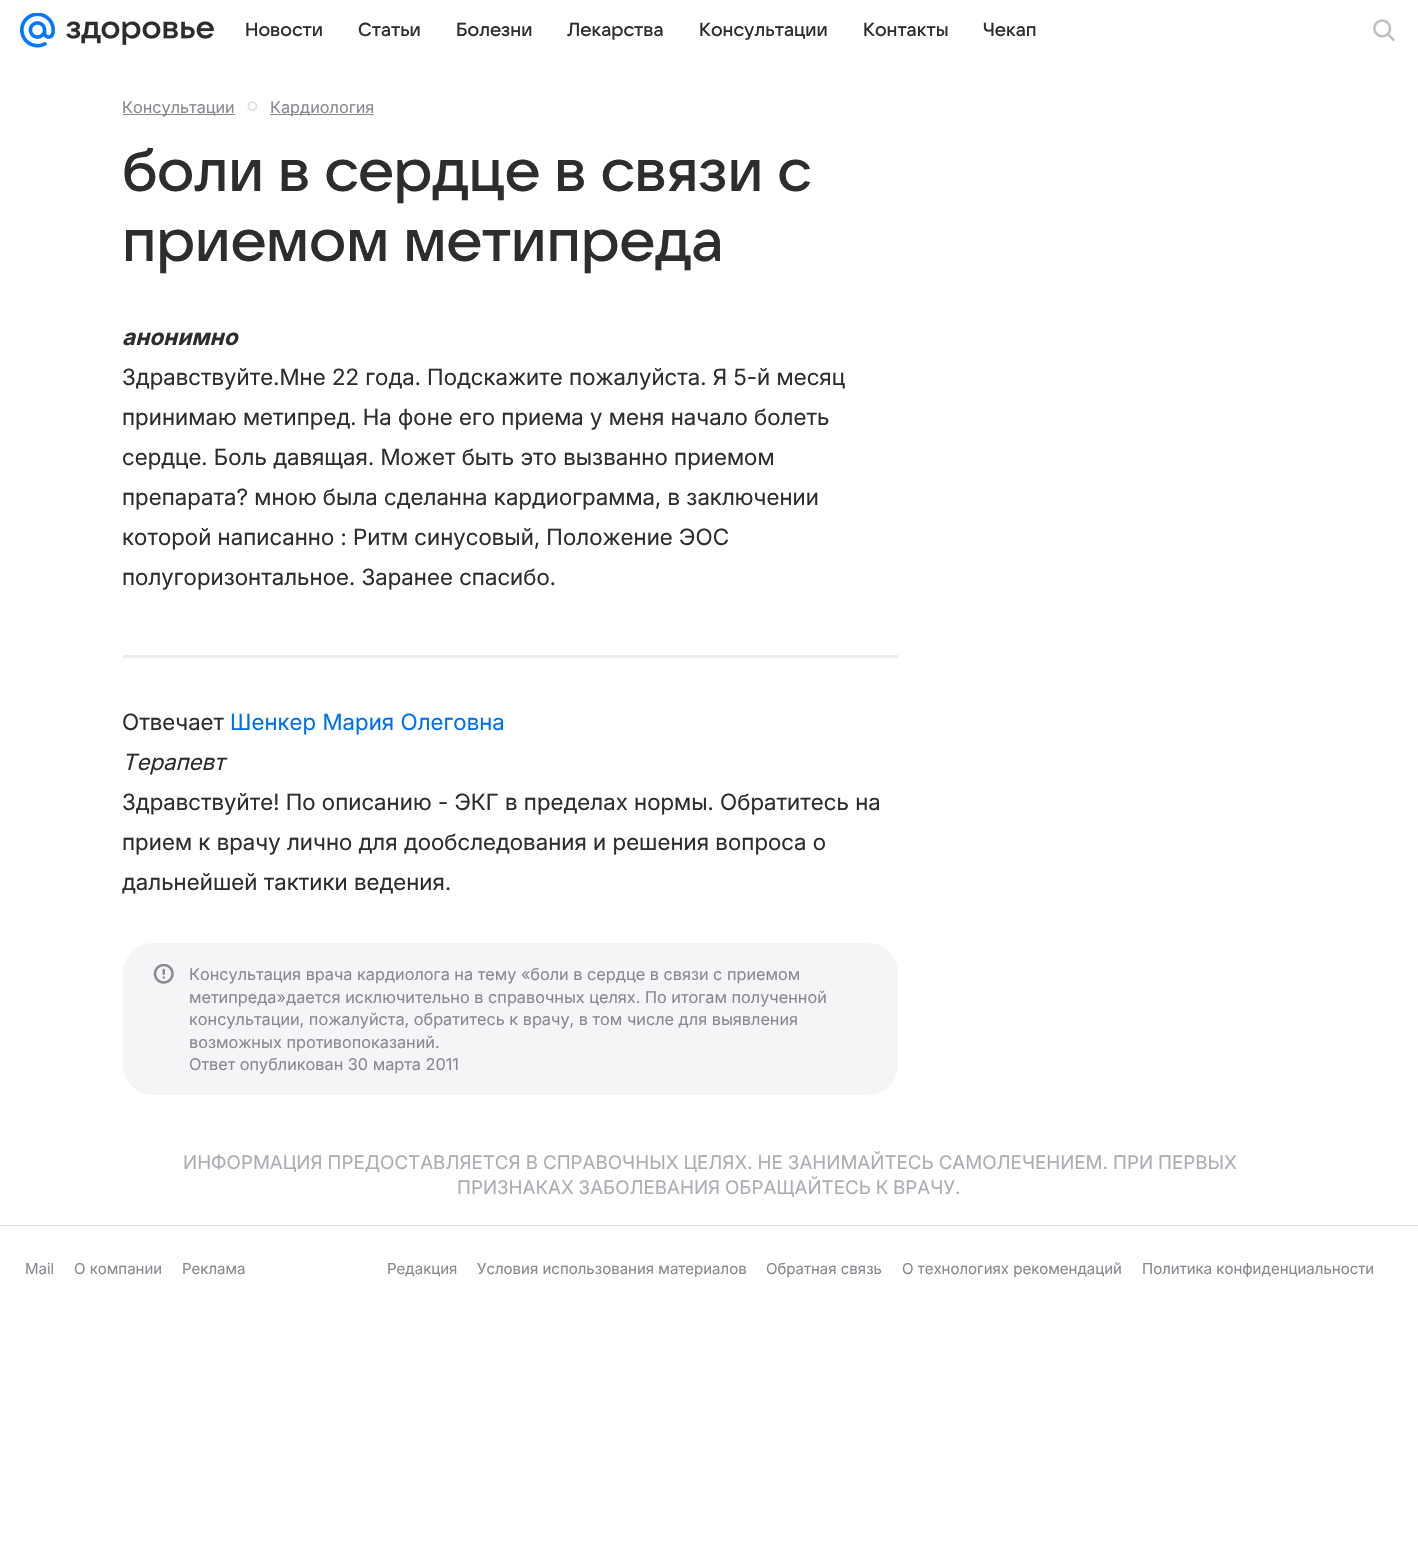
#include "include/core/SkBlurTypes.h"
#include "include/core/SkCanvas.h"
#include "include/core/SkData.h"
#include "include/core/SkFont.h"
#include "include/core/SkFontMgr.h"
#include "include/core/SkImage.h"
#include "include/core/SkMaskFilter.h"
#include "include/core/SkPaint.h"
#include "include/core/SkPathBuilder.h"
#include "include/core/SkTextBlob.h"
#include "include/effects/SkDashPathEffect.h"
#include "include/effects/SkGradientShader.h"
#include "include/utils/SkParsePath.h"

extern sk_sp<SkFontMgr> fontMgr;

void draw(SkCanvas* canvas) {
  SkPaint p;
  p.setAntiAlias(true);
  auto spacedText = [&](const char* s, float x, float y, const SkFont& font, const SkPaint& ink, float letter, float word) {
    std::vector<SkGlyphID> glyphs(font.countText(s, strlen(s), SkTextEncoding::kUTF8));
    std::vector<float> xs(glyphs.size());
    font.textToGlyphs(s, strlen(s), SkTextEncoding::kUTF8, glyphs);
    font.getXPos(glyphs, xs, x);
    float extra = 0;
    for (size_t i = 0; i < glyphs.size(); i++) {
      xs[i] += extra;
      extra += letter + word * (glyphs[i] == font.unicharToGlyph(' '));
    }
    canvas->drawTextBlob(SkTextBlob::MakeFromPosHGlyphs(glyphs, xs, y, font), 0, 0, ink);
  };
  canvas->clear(SK_ColorWHITE);
  canvas->drawImageRect(SkImages::DeferredFromEncodedData(SkData::MakeFromFileName("images/1.png")), SkRect::MakeLTRB(20, 13, 55, 48), SkSamplingOptions());
  canvas->drawImageRect(SkImages::DeferredFromEncodedData(SkData::MakeFromFileName("images/2.png")), SkRect::MakeLTRB(66, 21, 214, 45), SkSamplingOptions());
  canvas->drawImageRect(SkImages::DeferredFromEncodedData(SkData::MakeFromFileName("images/3.png")), SkRect::MakeLTRB(1373, 19, 1395, 42), SkSamplingOptions());
  p.setColor(SkColorSetRGB(135, 137, 143));
  canvas->drawRect(SkRect::MakeLTRB(123, 114, 235, 115), p);
  canvas->drawImageRect(SkImages::DeferredFromEncodedData(SkData::MakeFromFileName("images/4.png")), SkRect::MakeLTRB(247, 101, 258, 112), SkSamplingOptions());
  canvas->drawRect(SkRect::MakeLTRB(270, 114, 374, 115), p);
  p.setColor(SkColorSetRGB(235, 236, 239));
  canvas->drawRect(SkRect::MakeLTRB(123, 655, 898, 658), p);
  p.setColor(SkColorSetRGB(245, 245, 247));
  canvas->drawRoundRect(SkRect::MakeLTRB(123, 943, 898, 1095), 30, 30, p);
  canvas->drawImageRect(SkImages::DeferredFromEncodedData(SkData::MakeFromFileName("images/5.png")), SkRect::MakeLTRB(153, 964, 174, 984), SkSamplingOptions());
  p.setColor(SkColorSetRGB(224, 226, 232));
  canvas->drawRect(SkRect::MakeLTRB(0, 1225, 1418, 1226), p);
  SkFont font1(fontMgr->matchFamilyStyle("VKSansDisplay", SkFontStyle(500, SkFontStyle::kNormal_Width, SkFontStyle::kUpright_Slant)), 18.75f);
  font1.setSubpixel(true);
  p.setColor(SkColorSetRGB(44, 45, 46));
  canvas->drawString("Новости", 245, 36, font1, p);
  canvas->drawString("Статьи", 358, 36, font1, p);
  canvas->drawString("Болезни", 456, 36, font1, p);
  canvas->drawString("Лекарства", 567, 36, font1, p);
  canvas->drawString("Консультации", 699, 36, font1, p);
  canvas->drawString("Контакты", 863, 36, font1, p);
  canvas->drawString("Чекап", 983, 36, font1, p);
  SkFont font2(fontMgr->matchFamilyStyle("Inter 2", SkFontStyle::Normal()), 16.25f);
  font2.setSubpixel(true);
  p.setColor(SkColorSetRGB(135, 137, 143));
  canvas->drawString("Консультации", 122, 113, font2, p);
  canvas->drawString("Кардиология", 270, 113, font2, p);
  SkFont font3(fontMgr->matchFamilyStyle("VKSansDisplay", SkFontStyle(500, SkFontStyle::kNormal_Width, SkFontStyle::kUpright_Slant)), 60);
  font3.setSubpixel(true);
  p.setColor(SkColorSetRGB(44, 45, 46));
  spacedText("боли в сердце в связи с", 122, 191, font3, p, -0.3f, 0);
  spacedText("приемом метипреда", 122, 261, font3, p, -0.3f, 0);
  SkFont font4(fontMgr->matchFamilyStyle("Inter", SkFontStyle::BoldItalic()), 22.5f);
  font4.setSubpixel(true);
  spacedText("анонимно", 122, 345, font4, p, 0.07f, 0);
  SkFont font5(fontMgr->matchFamilyStyle("Inter", SkFontStyle::Normal()), 22.5f);
  font5.setSubpixel(true);
  spacedText("Здравствуйте.Мне 22 года. Подскажите пожалуйста. Я 5-й месяц", 122, 385, font5, p, 0.07f, 0);
  spacedText("принимаю метипред. На фоне его приема у меня начало болеть", 122, 425, font5, p, 0.07f, 0);
  spacedText("сердце. Боль давящая. Может быть это вызванно приемом", 122, 465, font5, p, 0.07f, 0);
  spacedText("препарата? мною была сделанна кардиограмма, в заключении", 122, 505, font5, p, 0.07f, 0);
  spacedText("которой написанно : Ритм синусовый, Положение ЭОС", 122, 545, font5, p, 0.07f, 0);
  spacedText("полугоризонтальное. Заранее спасибо.", 122, 585, font5, p, 0.07f, 0);
  spacedText("Отвечает", 122, 730, font5, p, 0.07f, 0);
  p.setColor(SkColorSetRGB(0, 112, 240));
  spacedText("Шенкер Мария Олеговна", 230, 730, font5, p, 0.07f, 0);
  SkFont font6(fontMgr->matchFamilyStyle("Inter", SkFontStyle::Italic()), 22.5f);
  font6.setSubpixel(true);
  p.setColor(SkColorSetRGB(44, 45, 46));
  spacedText("Терапевт", 122, 770, font6, p, 0.07f, 0);
  spacedText("Здравствуйте! По описанию - ЭКГ в пределах нормы. Обратитесь на", 122, 810, font5, p, 0.07f, 0);
  spacedText("прием к врачу лично для дообследования и решения вопроса о", 122, 850, font5, p, 0.07f, 0);
  spacedText("дальнейшей тактики ведения.", 122, 890, font5, p, 0.07f, 0);
  p.setColor(SkColorSetRGB(135, 137, 143));
  canvas->drawString("Консультация врача кардиолога на тему «боли в сердце в связи с приемом", 189, 980, font2, p);
  canvas->drawString("метипреда»дается исключительно в справочных целях. По итогам полученной", 189, 1003, font2, p);
  canvas->drawString("консультации, пожалуйста, обратитесь к врачу, в том числе для выявления", 189, 1025, font2, p);
  canvas->drawString("возможных противопоказаний.", 189, 1048, font2, p);
  canvas->drawString("Ответ опубликован 30 марта 2011", 189, 1070, font2, p);
  SkFont font7(fontMgr->matchFamilyStyle("Inter 2", SkFontStyle::Normal()), 18.75f);
  font7.setSubpixel(true);
  p.setColor(SkColorSetRGB(170, 173, 179));
  spacedText("ИНФОРМАЦИЯ ПРЕДОСТАВЛЯЕТСЯ В СПРАВОЧНЫХ ЦЕЛЯХ. НЕ ЗАНИМАЙТЕСЬ САМОЛЕЧЕНИЕМ. ПРИ ПЕРВЫХ", 183, 1169, font7, p, 0, -0.25f);
  spacedText("ПРИЗНАКАХ ЗАБОЛЕВАНИЯ ОБРАЩАЙТЕСЬ К ВРАЧУ.", 457, 1194, font7, p, 0, -0.5f);
  SkFont font8(fontMgr->matchFamilyStyle("Inter 2", SkFontStyle::Normal()), 15);
  font8.setSubpixel(true);
  p.setColor(SkColorSetRGB(135, 137, 143));
  canvas->drawString("Mail", 25, 1274, font8, p);
  canvas->drawString("О компании", 74, 1274, font8, p);
  canvas->drawString("Реклама", 182, 1274, font8, p);
  canvas->drawString("Редакция", 387, 1274, font8, p);
  canvas->drawString("Условия использования материалов", 477, 1274, font8, p);
  canvas->drawString("Обратная связь", 766, 1274, font8, p);
  canvas->drawString("О технологиях рекомендаций", 902, 1274, font8, p);
  canvas->drawString("Политика конфиденциальности", 1142, 1274, font8, p);
}
